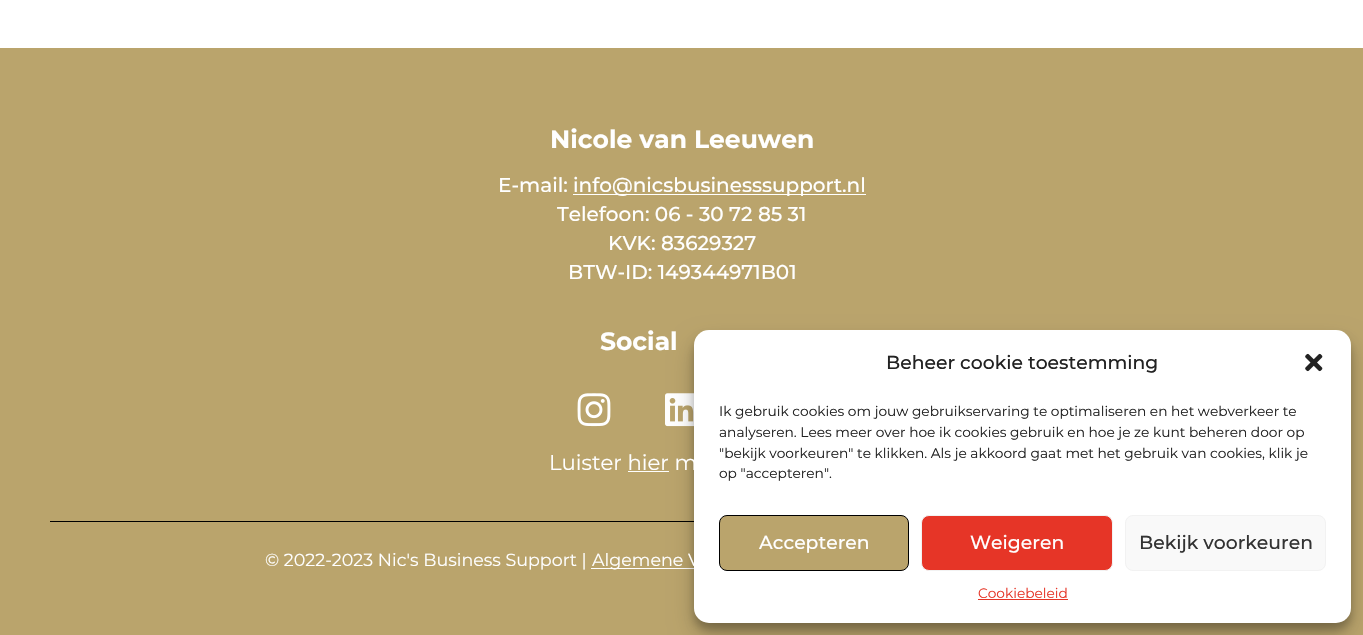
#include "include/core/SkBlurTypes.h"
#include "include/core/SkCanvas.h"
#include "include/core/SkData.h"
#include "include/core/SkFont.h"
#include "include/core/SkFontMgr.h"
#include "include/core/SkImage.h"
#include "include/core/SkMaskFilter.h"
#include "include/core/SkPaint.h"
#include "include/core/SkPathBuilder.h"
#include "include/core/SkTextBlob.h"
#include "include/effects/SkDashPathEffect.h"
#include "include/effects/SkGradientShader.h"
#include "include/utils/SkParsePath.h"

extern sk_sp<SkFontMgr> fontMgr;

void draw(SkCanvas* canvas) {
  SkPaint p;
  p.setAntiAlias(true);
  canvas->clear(SK_ColorWHITE);
  p.setColor(SkColorSetRGB(186, 164, 108));
  canvas->drawRect(SkRect::MakeLTRB(0, 48, 1363, 635), p);
  p.setColor(SK_ColorWHITE);
  canvas->drawRect(SkRect::MakeLTRB(573, 194, 866, 195), p);
  canvas->drawImageRect(SkImages::DeferredFromEncodedData(SkData::MakeFromFileName("images/1.png")), SkRect::MakeLTRB(577, 393, 611, 427), SkSamplingOptions());
  canvas->drawImageRect(SkImages::DeferredFromEncodedData(SkData::MakeFromFileName("images/2.png")), SkRect::MakeLTRB(665, 393, 694, 427), SkSamplingOptions());
  canvas->drawRect(SkRect::MakeLTRB(628, 471, 669, 472), p);
  p.setColor(SK_ColorBLACK);
  canvas->drawRect(SkRect::MakeLTRB(50, 521, 694, 522), p);
  p.setColor(SK_ColorWHITE);
  canvas->drawRect(SkRect::MakeLTRB(591, 568, 694, 569), p);
  p.setColor(SkColorSetARGB(59, 0, 0, 0));
  p.setMaskFilter(SkMaskFilter::MakeBlur(kNormal_SkBlurStyle, 4));
  canvas->drawRoundRect(SkRect::MakeLTRB(694, 338, 1351, 630), 15, 15, p);
  p.setMaskFilter(nullptr);
  p.setColor(SkColorSetARGB(48, 0, 0, 0));
  p.setMaskFilter(SkMaskFilter::MakeBlur(kNormal_SkBlurStyle, 12.5f));
  canvas->drawRoundRect(SkRect::MakeLTRB(694, 343, 1351, 635), 15, 15, p);
  p.setMaskFilter(nullptr);
  p.setColor(SK_ColorWHITE);
  canvas->drawRoundRect(SkRect::MakeLTRB(694, 330, 1351, 623), 15, 15, p);
  canvas->drawImageRect(SkImages::DeferredFromEncodedData(SkData::MakeFromFileName("images/3.png")), SkRect::MakeLTRB(1305, 353, 1323, 372), SkSamplingOptions());
  p.setColor(SkColorSetRGB(186, 164, 108));
  canvas->drawRoundRect(SkRect::MakeLTRB(719.5f, 515.5f, 908.5f, 570.5f), 7.5f, 7.5f, p);
  p.setStyle(SkPaint::kStroke_Style);
  p.setStrokeWidth(1);
  p.setColor(SK_ColorBLACK);
  canvas->drawRoundRect(SkRect::MakeLTRB(719.5f, 515.5f, 908.5f, 570.5f), 7.5f, 7.5f, p);
  p.setStyle(SkPaint::kFill_Style);
  p.setColor(SkColorSetRGB(230, 53, 39));
  canvas->drawRoundRect(SkRect::MakeLTRB(921.5f, 515.5f, 1112.5f, 570.5f), 7.5f, 7.5f, p);
  p.setStyle(SkPaint::kStroke_Style);
  p.setColor(SkColorSetRGB(242, 242, 242));
  canvas->drawRoundRect(SkRect::MakeLTRB(921.5f, 515.5f, 1112.5f, 570.5f), 7.5f, 7.5f, p);
  p.setStyle(SkPaint::kFill_Style);
  p.setColor(SkColorSetRGB(249, 249, 249));
  canvas->drawRoundRect(SkRect::MakeLTRB(1125.5f, 515.5f, 1325.5f, 570.5f), 7.5f, 7.5f, p);
  p.setStyle(SkPaint::kStroke_Style);
  p.setColor(SkColorSetRGB(242, 242, 242));
  canvas->drawRoundRect(SkRect::MakeLTRB(1125.5f, 515.5f, 1325.5f, 570.5f), 7.5f, 7.5f, p);
  p.setStyle(SkPaint::kFill_Style);
  p.setColor(SkColorSetRGB(230, 53, 39));
  canvas->drawRect(SkRect::MakeLTRB(978, 599, 1068, 600), p);
  SkFont font1(fontMgr->matchFamilyStyle("Montserrat", SkFontStyle::Bold()), 25);
  font1.setSubpixel(true);
  p.setColor(SK_ColorWHITE);
  canvas->drawString("Nicole van Leeuwen", 550, 148, font1, p);
  SkFont font2(fontMgr->matchFamilyStyle("Montserrat", SkFontStyle(500, SkFontStyle::kNormal_Width, SkFontStyle::kUpright_Slant)), 20);
  font2.setSubpixel(true);
  canvas->drawString("E-mail:", 498, 192, font2, p);
  canvas->drawString("info@nicsbusinesssupport.nl", 573, 192, font2, p);
  canvas->drawString("Telefoon: 06 - 30 72 85 31", 557, 221, font2, p);
  canvas->drawString("KVK: 83629327", 608, 250, font2, p);
  canvas->drawString("BTW-ID: 149344971B01", 568, 279, font2, p);
  canvas->drawString("Social", 600, 350, font1, p);
  SkFont font3(fontMgr->matchFamilyStyle("Montserrat", SkFontStyle::Normal()), 21.25f);
  font3.setSubpixel(true);
  canvas->drawString("Luister hier m", 549, 470, font3, p);
  SkFont font4(fontMgr->matchFamilyStyle("Montserrat", SkFontStyle::Normal()), 17.5f);
  font4.setSubpixel(true);
  canvas->drawString("© 2022-2023 Nic's Business Support |", 265, 566, font4, p);
  canvas->drawString("Algemene V", 592, 566, font4, p);
  SkFont font5(fontMgr->matchFamilyStyle("Montserrat", SkFontStyle(500, SkFontStyle::kNormal_Width, SkFontStyle::kUpright_Slant)), 18.75f);
  font5.setSubpixel(true);
  p.setColor(SkColorSetRGB(34, 34, 34));
  canvas->drawString("Beheer cookie toestemming", 886, 369, font5, p);
  SkFont font6(fontMgr->matchFamilyStyle("Montserrat", SkFontStyle::Normal()), 13.75f);
  font6.setSubpixel(true);
  canvas->drawString("Ik gebruik cookies om jouw gebruikservaring te optimaliseren en het webverkeer te", 719, 416, font6, p);
  canvas->drawString("analyseren. Lees meer over hoe ik cookies gebruik en hoe je ze kunt beheren door op", 719, 437, font6, p);
  canvas->drawString("\"bekijk voorkeuren\" te klikken. Als je akkoord gaat met het gebruik van cookies, klik je", 719, 458, font6, p);
  canvas->drawString("op \"accepteren\".", 719, 478, font6, p);
  p.setColor(SK_ColorWHITE);
  canvas->drawString("Accepteren", 759, 549, font5, p);
  canvas->drawString("Weigeren", 970, 549, font5, p);
  p.setColor(SkColorSetRGB(51, 51, 51));
  canvas->drawString("Bekijk voorkeuren", 1139, 549, font5, p);
  p.setColor(SkColorSetRGB(230, 53, 39));
  canvas->drawString("Cookiebeleid", 978, 598, font6, p);
}
